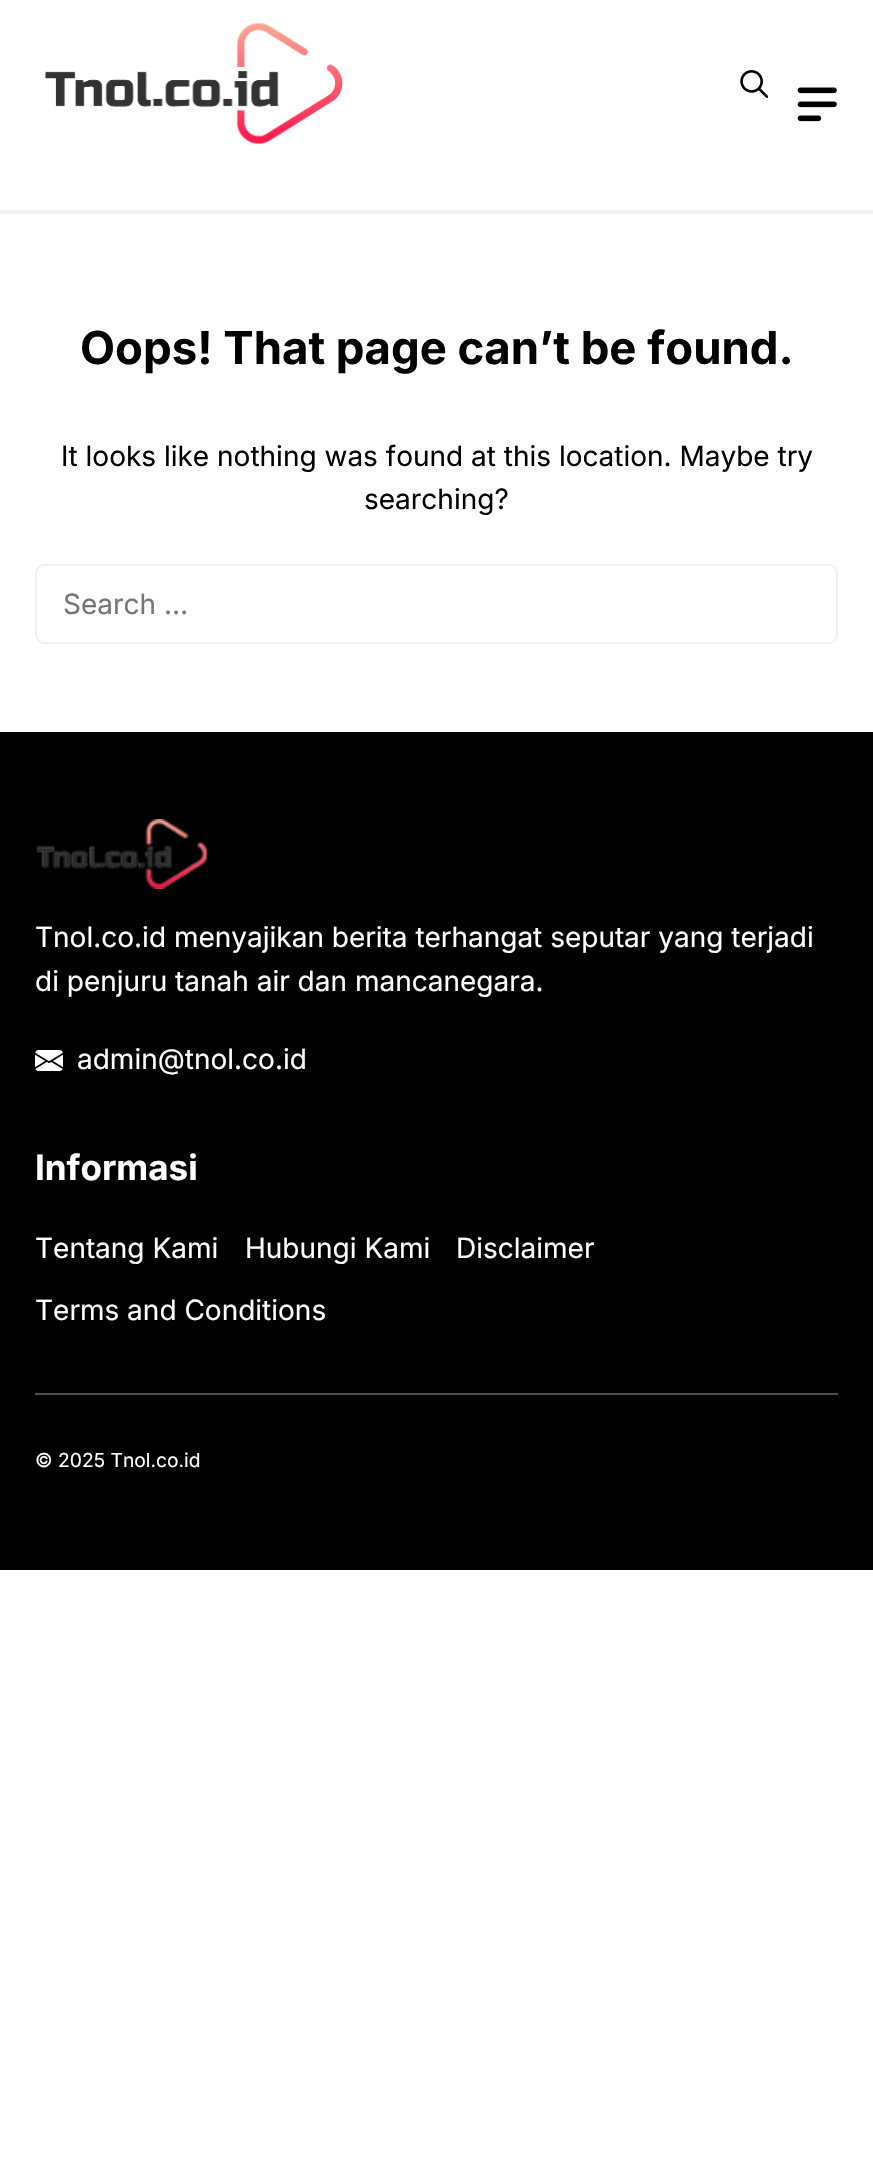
#include "include/core/SkBlurTypes.h"
#include "include/core/SkCanvas.h"
#include "include/core/SkData.h"
#include "include/core/SkFont.h"
#include "include/core/SkFontMgr.h"
#include "include/core/SkImage.h"
#include "include/core/SkMaskFilter.h"
#include "include/core/SkPaint.h"
#include "include/core/SkPathBuilder.h"
#include "include/core/SkTextBlob.h"
#include "include/effects/SkDashPathEffect.h"
#include "include/effects/SkGradientShader.h"
#include "include/utils/SkParsePath.h"

extern sk_sp<SkFontMgr> fontMgr;

void draw(SkCanvas* canvas) {
  SkPaint p;
  p.setAntiAlias(true);
  canvas->clear(SK_ColorWHITE);
  p.setColor(SkColorSetRGB(241, 241, 241));
  canvas->drawRect(SkRect::MakeLTRB(0, 210, 873, 214), p);
  canvas->drawImageRect(SkImages::DeferredFromEncodedData(SkData::MakeFromFileName("images/1.png")), SkRect::MakeLTRB(45, 22, 343, 144), SkSamplingOptions());
  canvas->drawImageRect(SkImages::DeferredFromEncodedData(SkData::MakeFromFileName("images/2.png")), SkRect::MakeLTRB(740, 70, 768, 98), SkSamplingOptions());
  canvas->drawImageRect(SkImages::DeferredFromEncodedData(SkData::MakeFromFileName("images/3.png")), SkRect::MakeLTRB(797, 87, 837, 122), SkSamplingOptions());
  p.setStyle(SkPaint::kStroke_Style);
  p.setStrokeWidth(2);
  canvas->drawRoundRect(SkRect::MakeLTRB(36, 565, 837, 643), 8, 8, p);
  p.setStyle(SkPaint::kFill_Style);
  p.setColor(SK_ColorBLACK);
  canvas->drawRect(SkRect::MakeLTRB(0, 732, 873, 1570), p);
  canvas->drawImageRect(SkImages::DeferredFromEncodedData(SkData::MakeFromFileName("images/4.png")), SkRect::MakeLTRB(36, 819, 207, 889), SkSamplingOptions());
  canvas->drawImageRect(SkImages::DeferredFromEncodedData(SkData::MakeFromFileName("images/5.png")), SkRect::MakeLTRB(35, 1050, 63, 1071), SkSamplingOptions());
  p.setColor(SkColorSetRGB(77, 77, 77));
  canvas->drawRect(SkRect::MakeLTRB(35, 1393, 838, 1395), p);
  SkFont font1(fontMgr->matchFamilyStyle("Inter", SkFontStyle::Bold()), 45.5f);
  font1.setSubpixel(true);
  p.setColor(SK_ColorBLACK);
  canvas->drawString("Oops! That page can’t be found.", 80, 364, font1, p);
  SkFont font2(fontMgr->matchFamilyStyle("Inter", SkFontStyle::Normal()), 28);
  font2.setSubpixel(true);
  canvas->drawString("It looks like nothing was found at this location. Maybe try", 61, 466, font2, p);
  canvas->drawString("searching?", 364, 509, font2, p);
  p.setColor(SkColorSetRGB(117, 117, 117));
  canvas->drawString("Search …", 63, 614, font2, p);
  p.setColor(SK_ColorWHITE);
  canvas->drawString("Tnol.co.id menyajikan berita terhangat seputar yang terjadi", 35, 947, font2, p);
  canvas->drawString("di penjuru tanah air dan mancanegara.", 35, 991, font2, p);
  canvas->drawString("admin@tnol.co.id", 77, 1069, font2, p);
  SkFont font3(fontMgr->matchFamilyStyle("Inter", SkFontStyle::Bold()), 35);
  font3.setSubpixel(true);
  canvas->drawString("Informasi", 35, 1180, font3, p);
  canvas->drawString("Tentang Kami", 35, 1258, font2, p);
  canvas->drawString("Hubungi Kami", 245, 1258, font2, p);
  canvas->drawString("Disclaimer", 456, 1258, font2, p);
  canvas->drawString("Terms and Conditions", 35, 1320, font2, p);
  SkFont font4(fontMgr->matchFamilyStyle("Inter", SkFontStyle::Normal()), 19.25f);
  font4.setSubpixel(true);
  canvas->drawString("© 2025 Tnol.co.id", 35, 1467, font4, p);
}
